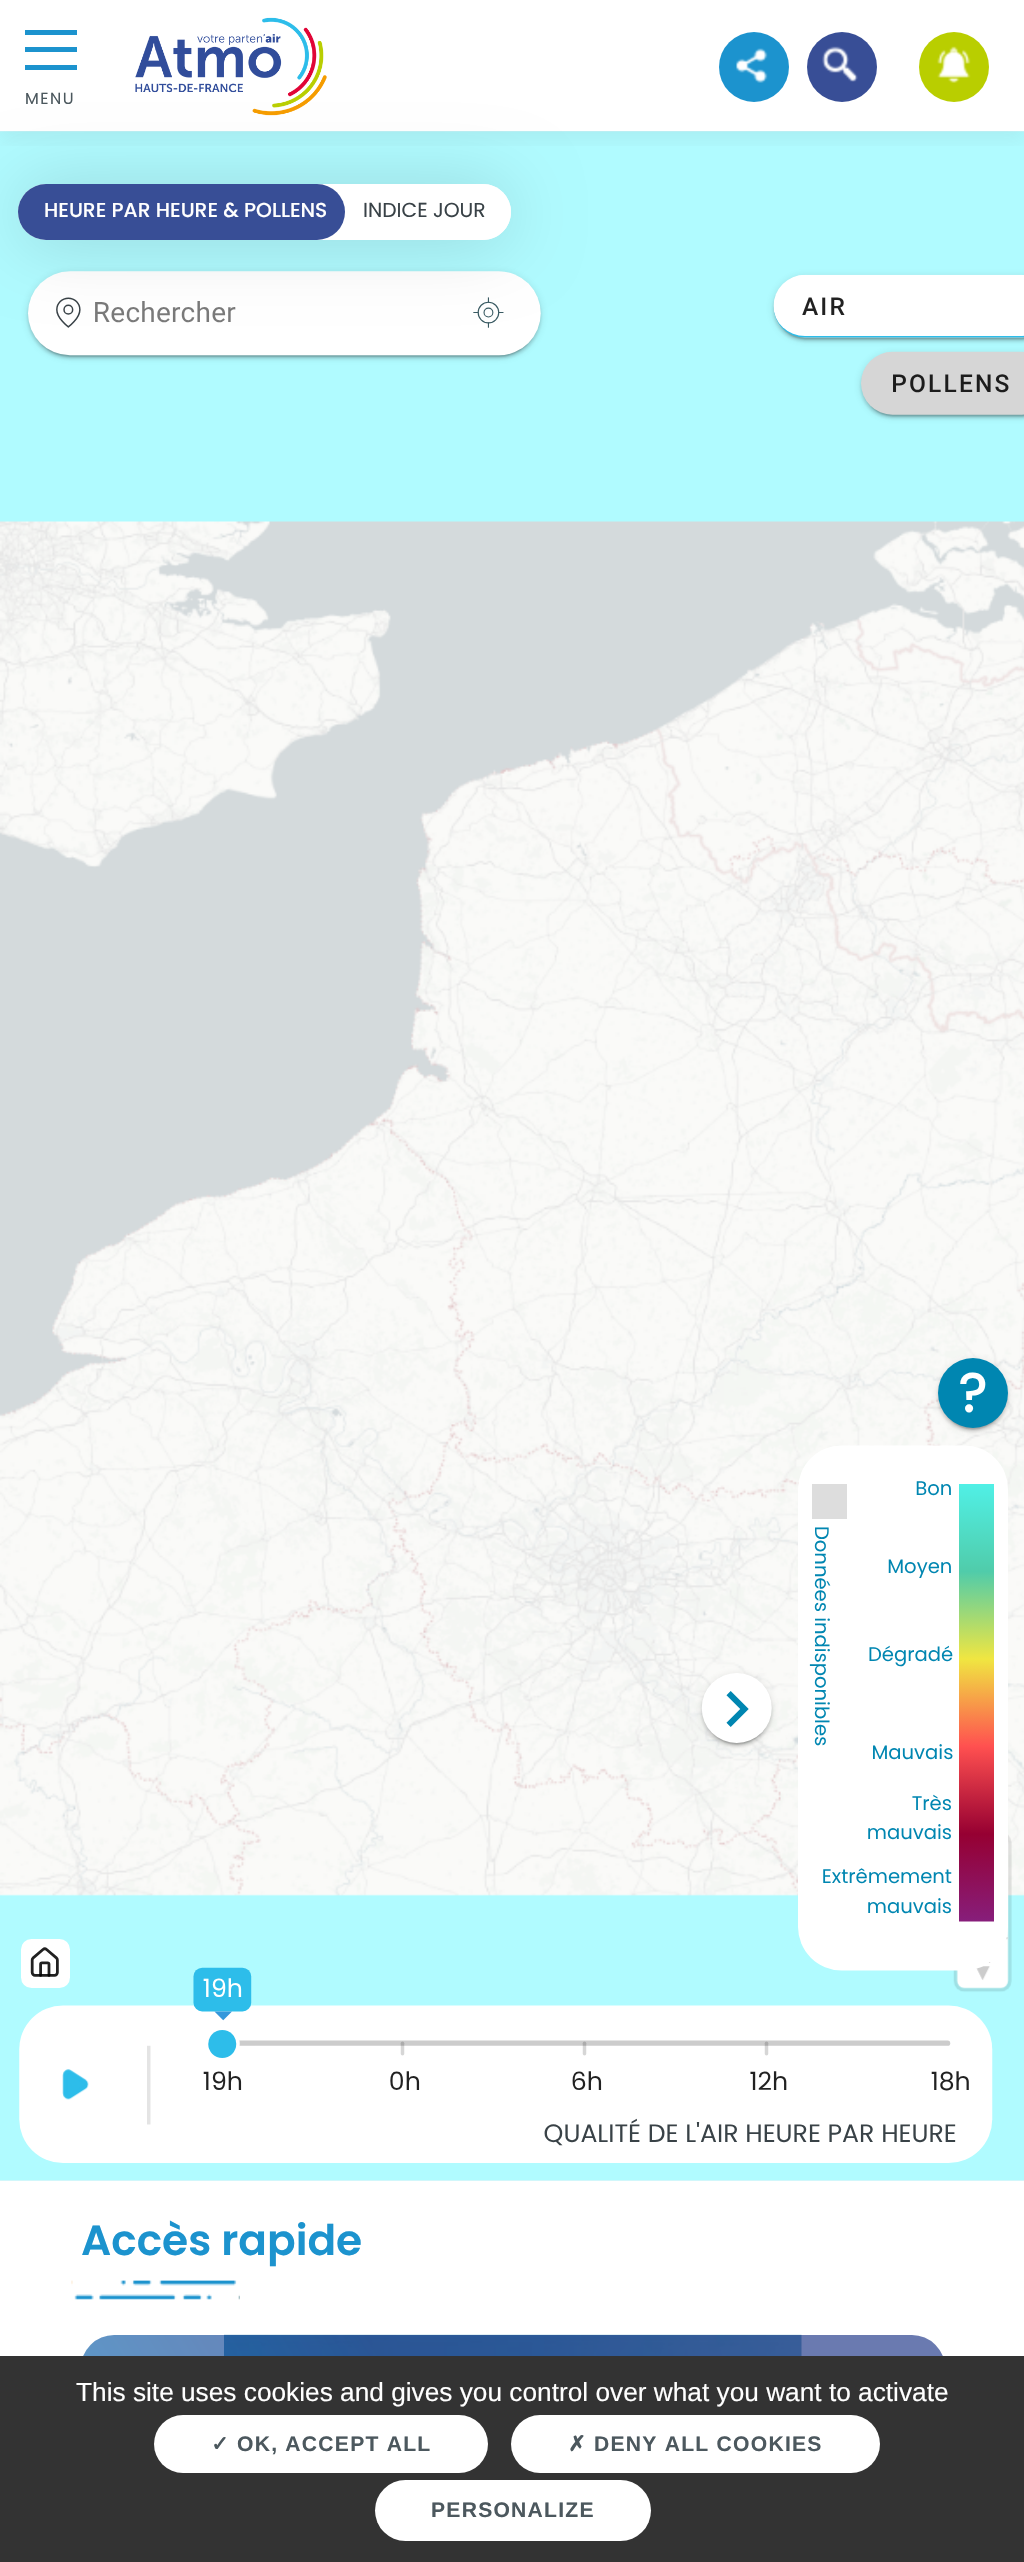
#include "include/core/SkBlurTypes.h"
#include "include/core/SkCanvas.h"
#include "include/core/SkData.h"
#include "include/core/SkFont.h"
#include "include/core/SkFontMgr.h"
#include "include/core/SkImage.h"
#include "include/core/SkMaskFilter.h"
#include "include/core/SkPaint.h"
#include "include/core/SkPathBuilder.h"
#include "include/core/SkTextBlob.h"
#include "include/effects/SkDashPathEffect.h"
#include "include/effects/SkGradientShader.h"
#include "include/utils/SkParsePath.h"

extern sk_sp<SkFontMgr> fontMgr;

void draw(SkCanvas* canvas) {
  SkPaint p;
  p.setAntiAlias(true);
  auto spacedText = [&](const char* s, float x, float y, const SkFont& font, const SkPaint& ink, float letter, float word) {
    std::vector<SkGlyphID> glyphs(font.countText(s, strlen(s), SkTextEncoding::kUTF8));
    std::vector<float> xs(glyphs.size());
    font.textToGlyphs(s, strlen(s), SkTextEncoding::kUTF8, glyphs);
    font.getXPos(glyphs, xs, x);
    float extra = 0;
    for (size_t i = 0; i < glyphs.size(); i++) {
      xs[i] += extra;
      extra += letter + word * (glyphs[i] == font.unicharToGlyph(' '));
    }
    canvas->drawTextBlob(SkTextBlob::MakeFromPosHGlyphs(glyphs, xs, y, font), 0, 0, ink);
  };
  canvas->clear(SK_ColorWHITE);
  p.setColor(SkColorSetRGB(240, 241, 244));
  canvas->drawRect(SkRect::MakeLTRB(0, 131, 1024, 2181), p);
  canvas->drawImageRect(SkImages::DeferredFromEncodedData(SkData::MakeFromFileName("images/5.png")), SkRect::MakeLTRB(0, 131, 1024, 2181), SkSamplingOptions());
  canvas->save();
  canvas->clipRect(SkRect::MakeLTRB(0, 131, 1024, 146));
  p.setColor(SkColorSetARGB(20, 76, 88, 94));
  p.setMaskFilter(SkMaskFilter::MakeBlur(kNormal_SkBlurStyle, 9));
  canvas->drawRect(SkRect::MakeLTRB(0, 9, 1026, 140), p);
  p.setMaskFilter(nullptr);
  canvas->restore();
  p.setColor(SkColorSetRGB(28, 147, 206));
  canvas->drawRect(SkRect::MakeLTRB(25, 47, 77, 52), p);
  canvas->drawRect(SkRect::MakeLTRB(25, 30, 77, 35), p);
  canvas->drawRect(SkRect::MakeLTRB(25, 65, 77, 70), p);
  p.setColor(SkColorSetARGB(38, 0, 0, 0));
  p.setMaskFilter(SkMaskFilter::MakeBlur(kNormal_SkBlurStyle, 35));
  canvas->drawRoundRect(SkRect::MakeLTRB(18, 186, 511, 242), 28, 28, p);
  p.setMaskFilter(nullptr);
  canvas->drawImageRect(SkImages::DeferredFromEncodedData(SkData::MakeFromFileName("images/1.png")), SkRect::MakeLTRB(135, 17, 327, 116), SkSamplingOptions());
  p.setColor(SkColorSetRGB(28, 147, 206));
  canvas->drawCircle(754, 67, 35, p);
  canvas->drawImageRect(SkImages::DeferredFromEncodedData(SkData::MakeFromFileName("images/2.png")), SkRect::MakeLTRB(736, 48, 768, 83), SkSamplingOptions());
  p.setColor(SkColorSetRGB(56, 78, 150));
  canvas->drawCircle(842, 67, 35, p);
  canvas->drawImageRect(SkImages::DeferredFromEncodedData(SkData::MakeFromFileName("images/3.png")), SkRect::MakeLTRB(822, 46, 858, 82), SkSamplingOptions());
  p.setColor(SkColorSetRGB(185, 206, 0));
  canvas->drawCircle(954, 67, 35, p);
  canvas->drawImageRect(SkImages::DeferredFromEncodedData(SkData::MakeFromFileName("images/4.png")), SkRect::MakeLTRB(937, 46, 971, 83), SkSamplingOptions());
  p.setColor(SK_ColorWHITE);
  canvas->drawRoundRect(SkRect::MakeLTRB(18, 184, 511, 240), 28, 28, p);
  p.setColor(SkColorSetRGB(56, 78, 150));
  canvas->drawRoundRect(SkRect::MakeLTRB(18, 184, 345, 240), 28, 28, p);
  p.setColor(SK_ColorWHITE);
  canvas->drawPath(SkPathBuilder().moveTo(345, 184).lineTo(483, 184).cubicTo(498.5f, 184, 511, 196.5f, 511, 212).cubicTo(511, 227.5f, 498.5f, 240, 483, 240).lineTo(345, 240).close().detach(), p);
  canvas->drawImageRect(SkImages::DeferredFromEncodedData(SkData::MakeFromFileName("images/6.png")), SkRect::MakeLTRB(71, 2280, 240, 2300), SkSamplingOptions());
  canvas->drawImageRect(SkImages::DeferredFromEncodedData(SkData::MakeFromFileName("images/7.png")), SkRect::MakeLTRB(224, 2334, 802, 2356), SkSamplingOptions());
  {
    const SkColor colors[] = {SkColorSetARGB(191, 28, 147, 206), SkColorSetARGB(191, 56, 78, 150)};
    const float stops[] = {0, 0.5f};
    const SkPoint ends[] = {{98, 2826}, {928, 2307}};
    p.setShader(SkGradientShader::MakeLinear(ends, colors, stops, 2, SkTileMode::kClamp));
    p.setAlpha(255);
  }
  canvas->drawRoundRect(SkRect::MakeLTRB(81, 2335, 945, 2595), 33, 33, p);
  p.setShader(nullptr);
  p.setColor(SkColorSetRGB(51, 51, 51));
  canvas->drawRect(SkRect::MakeLTRB(0, 2356, 1024, 2562), p);
  p.setColor(SK_ColorWHITE);
  canvas->drawRoundRect(SkRect::MakeLTRB(154, 2415, 488, 2473), 29, 29, p);
  canvas->drawRoundRect(SkRect::MakeLTRB(511, 2415, 880, 2473), 29, 29, p);
  canvas->drawRoundRect(SkRect::MakeLTRB(375, 2480, 651, 2541), 30.5f, 30.5f, p);
  SkFont font1(fontMgr->matchFamilyStyle("Poppins", SkFontStyle::Normal()), 16);
  font1.setSubpixel(true);
  p.setColor(SkColorSetRGB(76, 88, 94));
  spacedText("MENU", 25, 104, font1, p, 1.5f, 0);
  SkFont font2(fontMgr->matchFamilyStyle("Poppins", SkFontStyle(500, SkFontStyle::kNormal_Width, SkFontStyle::kUpright_Slant)), 20.25f);
  font2.setSubpixel(true);
  p.setColor(SK_ColorWHITE);
  canvas->drawString("HEURE PAR HEURE & POLLENS", 44, 217, font2, p);
  SkFont font3(fontMgr->matchFamilyStyle("Poppins", SkFontStyle::Normal()), 20.25f);
  font3.setSubpixel(true);
  p.setColor(SkColorSetRGB(57, 66, 71));
  canvas->drawString("INDICE JOUR", 363, 217, font3, p);
  SkFont font4(fontMgr->matchFamilyStyle("Poppins", SkFontStyle(600, SkFontStyle::kNormal_Width, SkFontStyle::kUpright_Slant)), 42.25f);
  font4.setSubpixel(true);
  p.setColor(SkColorSetRGB(28, 147, 206));
  canvas->drawString("Accès rapide", 81, 2255, font4, p);
  SkFont font5(fontMgr->matchFamilyStyle("Liberation Sans", SkFontStyle::Normal()), 26.25f);
  font5.setSubpixel(true);
  p.setColor(SK_ColorWHITE);
  canvas->drawString("This site uses cookies and gives you control over what you want to activate", 76, 2401, font5, p);
  SkFont font6(fontMgr->matchFamilyStyle("DejaVu Sans", SkFontStyle::Bold()), 21.1f);
  font6.setSubpixel(true);
  p.setColor(SkColorSetRGB(76, 88, 94));
  spacedText("✓", 211, 2451, font6, p, 1.25f, 0);
  SkFont font7(fontMgr->matchFamilyStyle("Liberation Sans", SkFontStyle::Bold()), 21.1f);
  font7.setSubpixel(true);
  spacedText("OK, ACCEPT ALL", 237, 2451, font7, p, 1.25f, 0);
  spacedText("✗", 568, 2451, font6, p, 1.25f, 0);
  spacedText("DENY ALL COOKIES", 594, 2451, font7, p, 1.25f, 0);
  spacedText("PERSONALIZE", 431, 2517, font7, p, 1.25f, 0);
}
